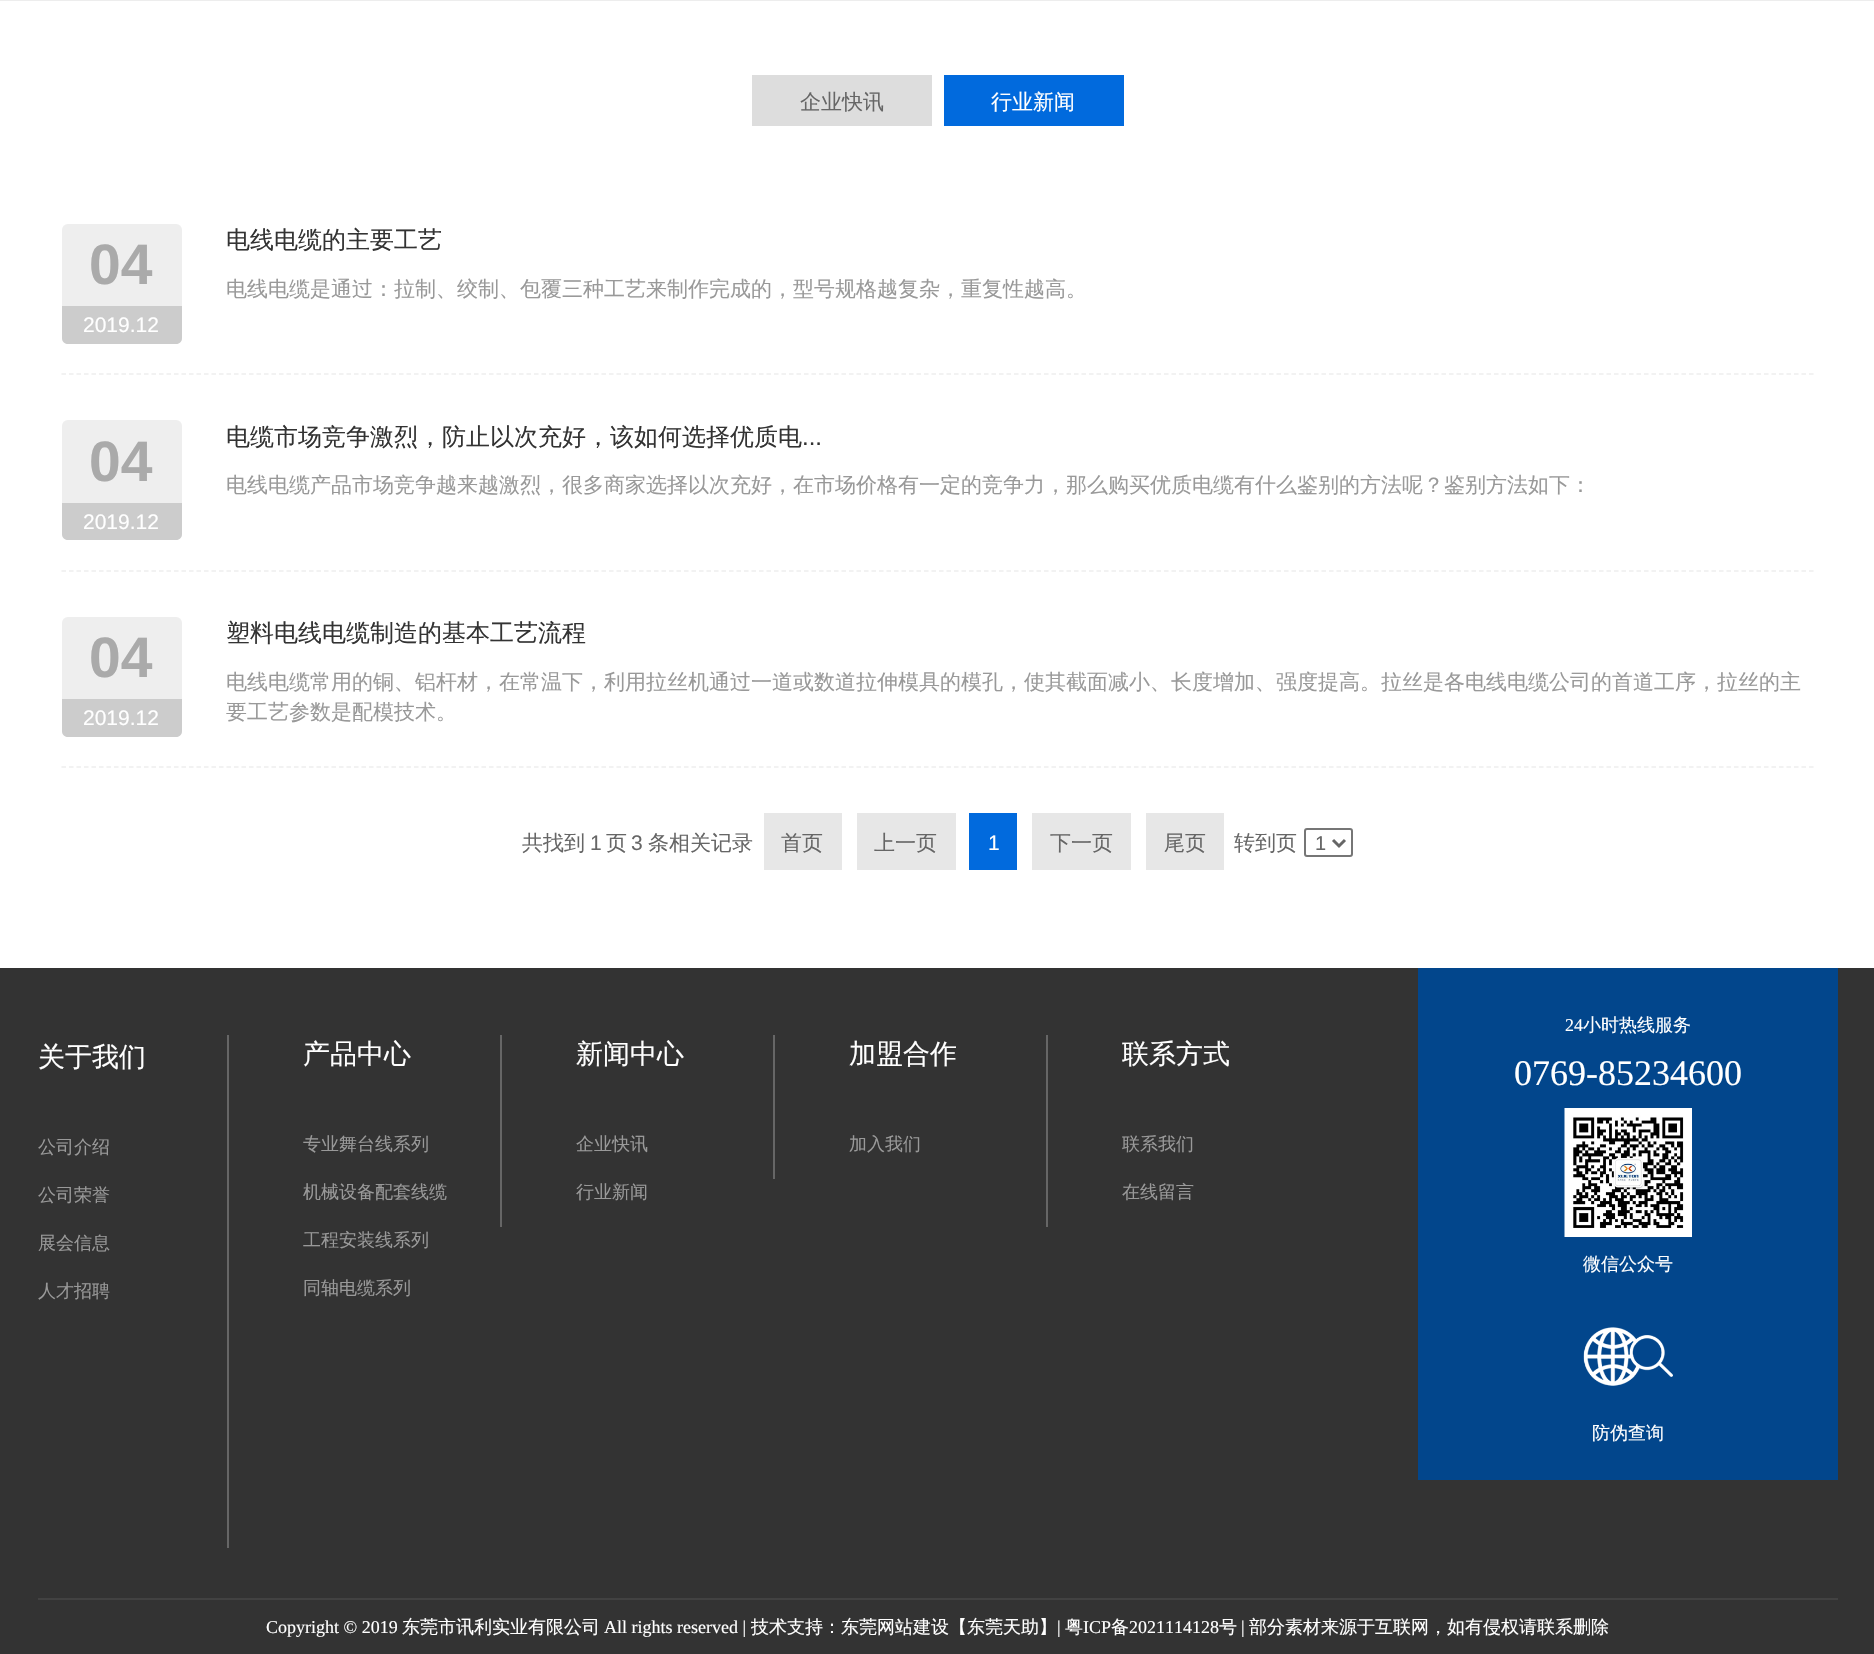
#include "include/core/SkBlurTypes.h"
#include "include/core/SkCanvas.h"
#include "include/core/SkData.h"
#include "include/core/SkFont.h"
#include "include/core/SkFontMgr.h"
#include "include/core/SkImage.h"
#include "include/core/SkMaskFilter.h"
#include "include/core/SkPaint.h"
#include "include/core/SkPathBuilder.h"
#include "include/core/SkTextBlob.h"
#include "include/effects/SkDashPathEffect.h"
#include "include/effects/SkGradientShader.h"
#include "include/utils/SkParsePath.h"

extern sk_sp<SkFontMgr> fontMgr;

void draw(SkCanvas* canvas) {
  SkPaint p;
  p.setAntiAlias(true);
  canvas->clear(SK_ColorWHITE);
  p.setColor(SkColorSetRGB(237, 237, 237));
  canvas->drawRect(SkRect::MakeLTRB(0, 0, 1874, 1), p);
  p.setColor(SkColorSetRGB(221, 221, 221));
  canvas->drawRect(SkRect::MakeLTRB(752, 75, 932, 126), p);
  p.setColor(SkColorSetRGB(1, 106, 221));
  canvas->drawRect(SkRect::MakeLTRB(944, 75, 1124, 126), p);
  p.setStyle(SkPaint::kStroke_Style);
  p.setStrokeWidth(1.5f);
  p.setColor(SkColorSetRGB(238, 238, 238));
  p.setPathEffect(SkDashPathEffect::Make({{4.5f, 3}}, 0));
  canvas->drawPath(SkPathBuilder().moveTo(61.5f, 374).lineTo(1815, 374).detach(), p);
  p.setPathEffect(nullptr);
  p.setStyle(SkPaint::kFill_Style);
  canvas->drawRoundRect(SkRect::MakeLTRB(62, 224, 182, 344), 6, 6, p);
  p.setColor(SkColorSetRGB(204, 204, 204));
  canvas->drawPath(SkPathBuilder().moveTo(62, 306).lineTo(182, 306).lineTo(182, 338).cubicTo(182, 341.5f, 179.5f, 344, 176, 344).lineTo(68, 344).cubicTo(64.5f, 344, 62, 341.5f, 62, 338).close().detach(), p);
  p.setStyle(SkPaint::kStroke_Style);
  p.setColor(SkColorSetRGB(238, 238, 238));
  p.setPathEffect(SkDashPathEffect::Make({{4.5f, 3}}, 0));
  canvas->drawPath(SkPathBuilder().moveTo(61.5f, 571).lineTo(1815, 571).detach(), p);
  p.setPathEffect(nullptr);
  p.setStyle(SkPaint::kFill_Style);
  canvas->drawRoundRect(SkRect::MakeLTRB(62, 420, 182, 540), 6, 6, p);
  p.setColor(SkColorSetRGB(204, 204, 204));
  canvas->drawPath(SkPathBuilder().moveTo(62, 503).lineTo(182, 503).lineTo(182, 534).cubicTo(182, 537.5f, 179.5f, 540, 176, 540).lineTo(68, 540).cubicTo(64.5f, 540, 62, 537.5f, 62, 534).close().detach(), p);
  p.setStyle(SkPaint::kStroke_Style);
  p.setColor(SkColorSetRGB(238, 238, 238));
  p.setPathEffect(SkDashPathEffect::Make({{4.5f, 3}}, 0));
  canvas->drawPath(SkPathBuilder().moveTo(61.5f, 767).lineTo(1815, 767).detach(), p);
  p.setPathEffect(nullptr);
  p.setStyle(SkPaint::kFill_Style);
  canvas->drawRoundRect(SkRect::MakeLTRB(62, 617, 182, 737), 6, 6, p);
  p.setColor(SkColorSetRGB(204, 204, 204));
  canvas->drawPath(SkPathBuilder().moveTo(62, 699).lineTo(182, 699).lineTo(182, 731).cubicTo(182, 734.5f, 179.5f, 737, 176, 737).lineTo(68, 737).cubicTo(64.5f, 737, 62, 734.5f, 62, 731).close().detach(), p);
  p.setColor(SkColorSetRGB(231, 231, 231));
  canvas->drawRect(SkRect::MakeLTRB(764, 813, 842, 870), p);
  canvas->drawRect(SkRect::MakeLTRB(857, 813, 956, 870), p);
  p.setColor(SkColorSetRGB(1, 106, 221));
  canvas->drawRect(SkRect::MakeLTRB(969, 813, 1017, 870), p);
  p.setColor(SkColorSetRGB(231, 231, 231));
  canvas->drawRect(SkRect::MakeLTRB(1032, 813, 1131, 870), p);
  canvas->drawRect(SkRect::MakeLTRB(1146, 813, 1224, 870), p);
  p.setStyle(SkPaint::kStroke_Style);
  p.setStrokeWidth(2);
  p.setColor(SkColorSetRGB(118, 118, 118));
  canvas->drawRoundRect(SkRect::MakeLTRB(1305, 829, 1352, 856), 2, 2, p);
  p.setStrokeWidth(3);
  p.setColor(SkColorSetRGB(102, 102, 102));
  canvas->drawPath(SkPathBuilder().moveTo(1333, 840).lineTo(1339, 846).lineTo(1345, 840).detach(), p);
  p.setStyle(SkPaint::kFill_Style);
  p.setColor(SkColorSetRGB(51, 51, 51));
  canvas->drawRect(SkRect::MakeLTRB(0, 968, 1874, 1654), p);
  p.setColor(SkColorSetRGB(66, 66, 66));
  canvas->drawRect(SkRect::MakeLTRB(38, 1598, 1838, 1600), p);
  p.setColor(SkColorSetRGB(102, 102, 102));
  canvas->drawRect(SkRect::MakeLTRB(227, 1035, 229, 1548), p);
  canvas->drawRect(SkRect::MakeLTRB(500, 1035, 502, 1227), p);
  canvas->drawRect(SkRect::MakeLTRB(773, 1035, 775, 1179), p);
  canvas->drawRect(SkRect::MakeLTRB(1046, 1035, 1048, 1227), p);
  p.setColor(SkColorSetRGB(2, 70, 140));
  canvas->drawRect(SkRect::MakeLTRB(1418, 968, 1838, 1480), p);
  canvas->drawImageRect(SkImages::DeferredFromEncodedData(SkData::MakeFromFileName("images/1.png")), SkRect::MakeLTRB(1564, 1108, 1692, 1237), SkSamplingOptions());
  canvas->drawImageRect(SkImages::DeferredFromEncodedData(SkData::MakeFromFileName("images/2.png")), SkRect::MakeLTRB(1583, 1327, 1673, 1386), SkSamplingOptions());
  SkFont font1(fontMgr->matchFamilyStyle("WenQuanYi Zen Hei", SkFontStyle(500, SkFontStyle::kNormal_Width, SkFontStyle::kUpright_Slant)), 21);
  font1.setSubpixel(true);
  p.setColor(SkColorSetRGB(102, 102, 102));
  canvas->drawString("企业快讯", 800, 109, font1, p);
  p.setColor(SK_ColorWHITE);
  canvas->drawString("行业新闻", 991, 109, font1, p);
  SkFont font2(fontMgr->matchFamilyStyle("Liberation Sans", SkFontStyle::Bold()), 57);
  font2.setSubpixel(true);
  p.setColor(SkColorSetRGB(170, 170, 170));
  canvas->drawString("04", 89, 284, font2, p);
  SkFont font3(fontMgr->matchFamilyStyle("Liberation Sans", SkFontStyle::Normal()), 21);
  font3.setSubpixel(true);
  p.setColor(SK_ColorWHITE);
  canvas->drawString("2019.12", 83, 332, font3, p);
  SkFont font4(fontMgr->matchFamilyStyle("WenQuanYi Zen Hei", SkFontStyle(500, SkFontStyle::kNormal_Width, SkFontStyle::kUpright_Slant)), 24);
  font4.setSubpixel(true);
  p.setColor(SkColorSetRGB(51, 51, 51));
  canvas->drawString("电线电缆的主要工艺", 226, 248, font4, p);
  p.setColor(SkColorSetRGB(153, 153, 153));
  canvas->drawString("电线电缆是通过：拉制、绞制、包覆三种工艺来制作完成的，型号规格越复杂，重复性越高。", 226, 296, font1, p);
  p.setColor(SkColorSetRGB(170, 170, 170));
  canvas->drawString("04", 89, 481, font2, p);
  p.setColor(SK_ColorWHITE);
  canvas->drawString("2019.12", 83, 529, font3, p);
  p.setColor(SkColorSetRGB(51, 51, 51));
  canvas->drawString("电缆市场竞争激烈，防止以次充好，该如何选择优质电", 226, 445, font4, p);
  SkFont font5(fontMgr->matchFamilyStyle("Liberation Sans", SkFontStyle::Normal()), 24);
  font5.setSubpixel(true);
  canvas->drawString("...", 802, 445, font5, p);
  p.setColor(SkColorSetRGB(153, 153, 153));
  canvas->drawString("电线电缆产品市场竞争越来越激烈，很多商家选择以次充好，在市场价格有一定的竞争力，那么购买优质电缆有什么鉴别的方法呢？鉴别方法如下：", 226, 492, font1, p);
  p.setColor(SkColorSetRGB(170, 170, 170));
  canvas->drawString("04", 89, 677, font2, p);
  p.setColor(SK_ColorWHITE);
  canvas->drawString("2019.12", 83, 725, font3, p);
  p.setColor(SkColorSetRGB(51, 51, 51));
  canvas->drawString("塑料电线电缆制造的基本工艺流程", 226, 641, font4, p);
  p.setColor(SkColorSetRGB(153, 153, 153));
  canvas->drawString("电线电缆常用的铜、铝杆材，在常温下，利用拉丝机通过一道或数道拉伸模具的模孔，使其截面减小、长度增加、强度提高。拉丝是各电线电缆公司的首道工序，拉丝的主", 226, 689, font1, p);
  canvas->drawString("要工艺参数是配模技术。", 226, 719, font1, p);
  p.setColor(SkColorSetRGB(102, 102, 102));
  canvas->drawString("共找到", 522, 850, font1, p);
  canvas->drawString("1", 590, 850, font3, p);
  canvas->drawString("页", 606, 850, font1, p);
  canvas->drawString("3", 631, 850, font3, p);
  canvas->drawString("条相关记录", 648, 850, font1, p);
  canvas->drawString("首页", 781, 850, font1, p);
  canvas->drawString("上一页", 874, 850, font1, p);
  p.setColor(SK_ColorWHITE);
  canvas->drawString("1", 988, 850, font3, p);
  p.setColor(SkColorSetRGB(102, 102, 102));
  canvas->drawString("下一页", 1050, 850, font1, p);
  canvas->drawString("尾页", 1164, 850, font1, p);
  canvas->drawString("转到页", 1234, 850, font1, p);
  SkFont font6(fontMgr->matchFamilyStyle("Liberation Sans", SkFontStyle::Normal()), 20);
  font6.setSubpixel(true);
  canvas->drawString("1", 1315, 850, font6, p);
  SkFont font7(fontMgr->matchFamilyStyle("WenQuanYi Zen Hei", SkFontStyle(500, SkFontStyle::kNormal_Width, SkFontStyle::kUpright_Slant)), 27);
  font7.setSubpixel(true);
  p.setColor(SK_ColorWHITE);
  canvas->drawString("关于我们", 38, 1066, font7, p);
  SkFont font8(fontMgr->matchFamilyStyle("WenQuanYi Zen Hei", SkFontStyle(500, SkFontStyle::kNormal_Width, SkFontStyle::kUpright_Slant)), 18);
  font8.setSubpixel(true);
  p.setColor(SkColorSetRGB(153, 153, 153));
  canvas->drawString("公司介绍", 38, 1153, font8, p);
  canvas->drawString("公司荣誉", 38, 1201, font8, p);
  canvas->drawString("展会信息", 38, 1249, font8, p);
  canvas->drawString("人才招聘", 38, 1297, font8, p);
  p.setColor(SK_ColorWHITE);
  canvas->drawString("产品中心", 303, 1063, font7, p);
  p.setColor(SkColorSetRGB(153, 153, 153));
  canvas->drawString("专业舞台线系列", 303, 1150, font8, p);
  canvas->drawString("机械设备配套线缆", 303, 1198, font8, p);
  canvas->drawString("工程安装线系列", 303, 1246, font8, p);
  canvas->drawString("同轴电缆系列", 303, 1294, font8, p);
  p.setColor(SK_ColorWHITE);
  canvas->drawString("新闻中心", 576, 1063, font7, p);
  p.setColor(SkColorSetRGB(153, 153, 153));
  canvas->drawString("企业快讯", 576, 1150, font8, p);
  canvas->drawString("行业新闻", 576, 1198, font8, p);
  p.setColor(SK_ColorWHITE);
  canvas->drawString("加盟合作", 849, 1063, font7, p);
  p.setColor(SkColorSetRGB(153, 153, 153));
  canvas->drawString("加入我们", 849, 1150, font8, p);
  p.setColor(SK_ColorWHITE);
  canvas->drawString("联系方式", 1122, 1063, font7, p);
  p.setColor(SkColorSetRGB(153, 153, 153));
  canvas->drawString("联系我们", 1122, 1150, font8, p);
  canvas->drawString("在线留言", 1122, 1198, font8, p);
  SkFont font9(fontMgr->matchFamilyStyle("Liberation Serif", SkFontStyle::Normal()), 18);
  font9.setSubpixel(true);
  p.setColor(SK_ColorWHITE);
  canvas->drawString("24", 1565, 1031, font9, p);
  canvas->drawString("小时热线服务", 1583, 1031, font8, p);
  SkFont font10(fontMgr->matchFamilyStyle("Liberation Serif", SkFontStyle::Normal()), 36);
  font10.setSubpixel(true);
  canvas->drawString("0769-85234600", 1514, 1085, font10, p);
  canvas->drawString("微信公众号", 1583, 1270, font8, p);
  canvas->drawString("防伪查询", 1592, 1439, font8, p);
  canvas->drawString("Copyright © 2019", 266, 1633, font9, p);
  canvas->drawString("东莞市讯利实业有限公司", 402, 1633, font8, p);
  canvas->drawString("All rights reserved |", 604, 1633, font9, p);
  canvas->drawString("技术支持：东莞网站建设【东莞天助】", 751, 1633, font8, p);
  canvas->drawString("|", 1057, 1633, font9, p);
  canvas->drawString("粤", 1065, 1633, font8, p);
  canvas->drawString("ICP", 1083, 1633, font9, p);
  canvas->drawString("备", 1111, 1633, font8, p);
  canvas->drawString("2021114128", 1129, 1633, font9, p);
  canvas->drawString("号", 1219, 1633, font8, p);
  canvas->drawString("|", 1241, 1633, font9, p);
  canvas->drawString("部分素材来源于互联网，如有侵权请联系删除", 1249, 1633, font8, p);
}
